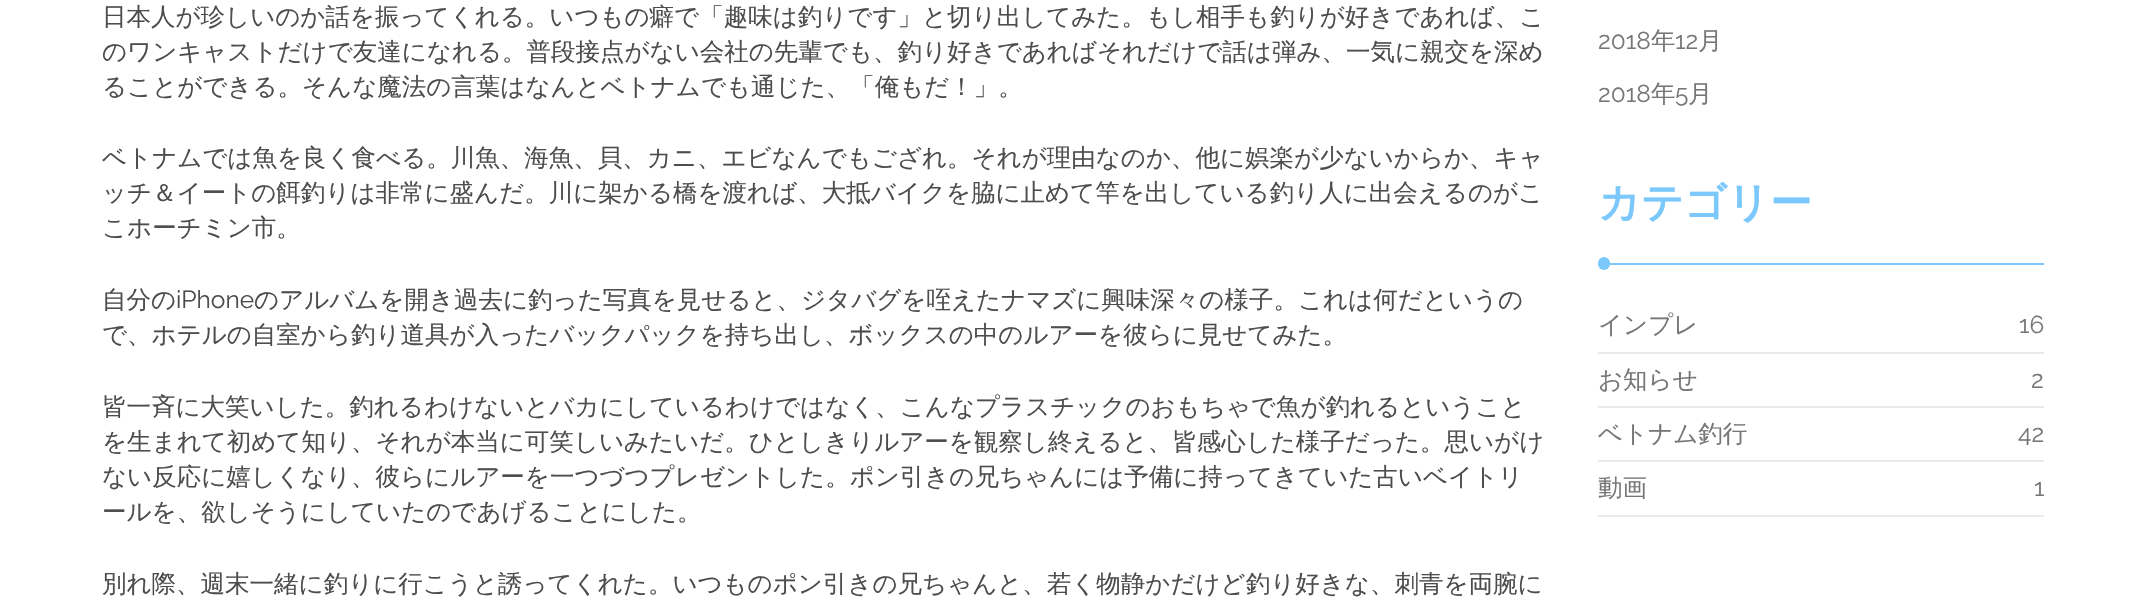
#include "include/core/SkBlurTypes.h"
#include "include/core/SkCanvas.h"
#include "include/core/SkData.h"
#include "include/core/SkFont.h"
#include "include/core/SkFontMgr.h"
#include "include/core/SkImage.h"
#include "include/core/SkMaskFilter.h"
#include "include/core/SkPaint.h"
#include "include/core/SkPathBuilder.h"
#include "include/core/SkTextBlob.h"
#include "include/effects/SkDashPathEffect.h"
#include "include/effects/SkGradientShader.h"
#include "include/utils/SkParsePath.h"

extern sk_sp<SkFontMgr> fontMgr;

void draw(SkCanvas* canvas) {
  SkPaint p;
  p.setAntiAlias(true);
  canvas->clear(SK_ColorWHITE);
  p.setColor(SkColorSetRGB(123, 200, 252));
  canvas->drawRect(SkRect::MakeLTRB(1598, 263, 2044, 265), p);
  canvas->drawRoundRect(SkRect::MakeLTRB(1598, 257, 1610, 270), 6, 6, p);
  p.setColor(SkColorSetRGB(234, 234, 234));
  canvas->drawRect(SkRect::MakeLTRB(1598, 352, 2044, 354), p);
  canvas->drawRect(SkRect::MakeLTRB(1598, 406, 2044, 408), p);
  canvas->drawRect(SkRect::MakeLTRB(1598, 460, 2044, 462), p);
  canvas->drawRect(SkRect::MakeLTRB(1598, 515, 2044, 517), p);
  SkFont font1(fontMgr->matchFamilyStyle("WenQuanYi Zen Hei", SkFontStyle(500, SkFontStyle::kNormal_Width, SkFontStyle::kUpright_Slant)), 24.5f);
  font1.setSubpixel(true);
  p.setColor(SkColorSetRGB(77, 77, 77));
  canvas->drawString("日本人が珍しいのか話を振ってくれる。いつもの癖で「趣味は釣りです」と切り出してみた。もし相手も釣りが好きであれば、こ", 102, 25, font1, p);
  canvas->drawString("のワンキャストだけで友達になれる。普段接点がない会社の先輩でも、釣り好きであればそれだけで話は弾み、一気に親交を深め", 102, 60, font1, p);
  canvas->drawString("ることができる。そんな魔法の言葉はなんとベトナムでも通じた、「俺もだ！」。", 102, 95, font1, p);
  canvas->drawString("ベトナムでは魚を良く食べる。川魚、海魚、貝、カニ、エビなんでもござれ。それが理由なのか、他に娯楽が少ないからか、キャ", 102, 166, font1, p);
  canvas->drawString("ッチ＆イートの餌釣りは非常に盛んだ。川に架かる橋を渡れば、大抵バイクを脇に止めて竿を出している釣り人に出会えるのがこ", 102, 201, font1, p);
  canvas->drawString("こホーチミン市。", 102, 236, font1, p);
  canvas->drawString("自分の", 102, 308, font1, p);
  SkFont font2(fontMgr->matchFamilyStyle("Raleway", SkFontStyle::Normal()), 24.5f);
  font2.setSubpixel(true);
  canvas->drawString("iPhone", 176, 308, font2, p);
  canvas->drawString("のアルバムを開き過去に釣った写真を見せると、ジタバグを咥えたナマズに興味深々の様子。これは何だというの", 254, 308, font1, p);
  canvas->drawString("で、ホテルの自室から釣り道具が入ったバックパックを持ち出し、ボックスの中のルアーを彼らに見せてみた。", 102, 343, font1, p);
  canvas->drawString("皆一斉に大笑いした。釣れるわけないとバカにしているわけではなく、こんなプラスチックのおもちゃで魚が釣れるということ", 102, 415, font1, p);
  canvas->drawString("を生まれて初めて知り、それが本当に可笑しいみたいだ。ひとしきりルアーを観察し終えると、皆感心した様子だった。思いがけ", 102, 450, font1, p);
  canvas->drawString("ない反応に嬉しくなり、彼らにルアーを一つづつプレゼントした。ポン引きの兄ちゃんには予備に持ってきていた古いベイトリ", 102, 485, font1, p);
  canvas->drawString("ールを、欲しそうにしていたのであげることにした。", 102, 520, font1, p);
  canvas->drawString("別れ際、週末一緒に釣りに行こうと誘ってくれた。いつものポン引きの兄ちゃんと、若く物静かだけど釣り好きな、刺青を両腕に", 102, 592, font1, p);
  p.setColor(SkColorSetRGB(119, 119, 119));
  canvas->drawString("2018", 1598, 49, font2, p);
  canvas->drawString("年", 1651, 49, font1, p);
  canvas->drawString("12", 1675, 49, font2, p);
  canvas->drawString("月", 1698, 49, font1, p);
  canvas->drawString("2018", 1598, 102, font2, p);
  canvas->drawString("年", 1651, 102, font1, p);
  canvas->drawString("5", 1675, 102, font2, p);
  canvas->drawString("月", 1688, 102, font1, p);
  SkFont font3(fontMgr->matchFamilyStyle("WenQuanYi Zen Hei", SkFontStyle::Bold()), 42);
  font3.setSubpixel(true);
  p.setColor(SkColorSetRGB(123, 200, 252));
  canvas->drawString("カテゴリー", 1598, 217, font3, p);
  p.setColor(SkColorSetRGB(119, 119, 119));
  canvas->drawString("インプレ", 1598, 333, font1, p);
  canvas->drawString("16", 2019, 333, font2, p);
  canvas->drawString("お知らせ", 1598, 388, font1, p);
  canvas->drawString("2", 2031, 388, font2, p);
  canvas->drawString("ベトナム釣行", 1598, 442, font1, p);
  canvas->drawString("42", 2018, 442, font2, p);
  canvas->drawString("動画", 1598, 496, font1, p);
  canvas->drawString("1", 2034, 496, font2, p);
}
